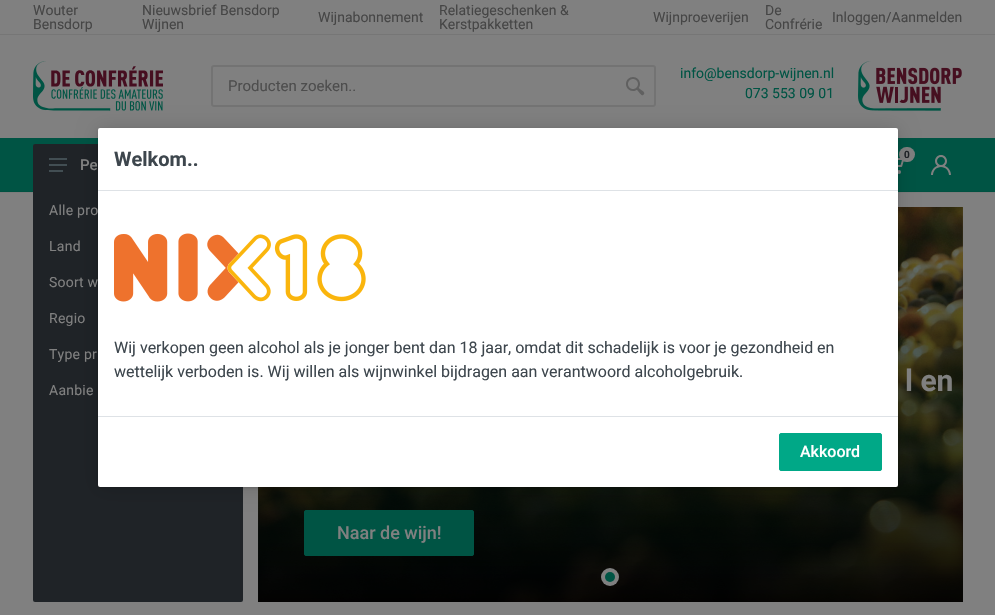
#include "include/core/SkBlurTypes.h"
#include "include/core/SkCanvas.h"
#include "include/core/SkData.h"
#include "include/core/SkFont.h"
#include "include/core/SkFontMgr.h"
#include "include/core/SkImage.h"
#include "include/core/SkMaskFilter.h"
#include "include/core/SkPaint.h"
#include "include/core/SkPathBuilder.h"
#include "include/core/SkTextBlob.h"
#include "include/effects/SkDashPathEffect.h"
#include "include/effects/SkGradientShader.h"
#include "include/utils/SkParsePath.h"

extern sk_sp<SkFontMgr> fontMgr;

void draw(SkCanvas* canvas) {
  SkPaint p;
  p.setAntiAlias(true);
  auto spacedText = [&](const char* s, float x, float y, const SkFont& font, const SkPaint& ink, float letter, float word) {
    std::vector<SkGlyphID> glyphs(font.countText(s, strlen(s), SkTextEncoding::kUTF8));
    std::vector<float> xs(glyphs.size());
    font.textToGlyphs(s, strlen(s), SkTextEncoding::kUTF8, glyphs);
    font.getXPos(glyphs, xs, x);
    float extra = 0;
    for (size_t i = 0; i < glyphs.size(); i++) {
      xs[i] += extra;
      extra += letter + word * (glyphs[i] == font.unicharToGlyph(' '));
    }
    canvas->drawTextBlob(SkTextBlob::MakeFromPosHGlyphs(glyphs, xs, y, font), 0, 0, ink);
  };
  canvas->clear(SkColorSetRGB(128, 128, 128));
  p.setStyle(SkPaint::kStroke_Style);
  p.setStrokeWidth(1);
  p.setColor(SkColorSetRGB(118, 118, 118));
  canvas->drawRect(SkRect::MakeLTRB(-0.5f, -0.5f, 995.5f, 34.5f), p);
  canvas->drawImageRect(SkImages::DeferredFromEncodedData(SkData::MakeFromFileName("images/1.png")), SkRect::MakeLTRB(33, 61, 163, 111), SkSamplingOptions());
  canvas->drawImageRect(SkImages::DeferredFromEncodedData(SkData::MakeFromFileName("images/2.png")), SkRect::MakeLTRB(626, 77, 645, 96), SkSamplingOptions());
  p.setStrokeWidth(2);
  p.setColor(SkColorSetRGB(115, 115, 115));
  canvas->drawRoundRect(SkRect::MakeLTRB(212, 66, 655, 106), 2, 2, p);
  canvas->drawImageRect(SkImages::DeferredFromEncodedData(SkData::MakeFromFileName("images/3.png")), SkRect::MakeLTRB(858, 61, 962, 111), SkSamplingOptions());
  p.setStyle(SkPaint::kFill_Style);
  p.setColor(SkColorSetRGB(123, 123, 123));
  canvas->drawRect(SkRect::MakeLTRB(0, 192, 995, 193), p);
  p.setColor(SkColorSetRGB(0, 84, 68));
  canvas->drawRect(SkRect::MakeLTRB(0, 138, 995, 191), p);
  p.setColor(SkColorSetRGB(0, 81, 65));
  canvas->drawRect(SkRect::MakeLTRB(0, 191, 995, 192), p);
  canvas->drawImageRect(SkImages::DeferredFromEncodedData(SkData::MakeFromFileName("images/4.png")), SkRect::MakeLTRB(898, 158, 904, 174), SkSamplingOptions());
  p.setColor(SkColorSetRGB(128, 128, 128));
  canvas->drawRoundRect(SkRect::MakeLTRB(899, 147, 915, 162), 7.5f, 7.5f, p);
  canvas->drawImageRect(SkImages::DeferredFromEncodedData(SkData::MakeFromFileName("images/5.png")), SkRect::MakeLTRB(931, 155, 951, 175), SkSamplingOptions());
  p.setColor(SkColorSetRGB(31, 35, 39));
  canvas->drawRoundRect(SkRect::MakeLTRB(33, 144, 243, 602), 2, 2, p);
  canvas->drawImageRect(SkImages::DeferredFromEncodedData(SkData::MakeFromFileName("images/6.png")), SkRect::MakeLTRB(49, 158, 67, 172), SkSamplingOptions());
  canvas->drawImageRect(SkImages::DeferredFromEncodedData(SkData::MakeFromFileName("images/7.png")), SkRect::MakeLTRB(258, 207, 963, 602), SkSamplingOptions());
  {
    const SkColor colors[] = {SkColorSetARGB(33, 0, 50, 25), SkColorSetARGB(209, 0, 0, 0)};
    const float stops[] = {0, 1};
    const SkPoint ends[] = {{611, 207}, {611, 602}};
    p.setShader(SkGradientShader::MakeLinear(ends, colors, stops, 2, SkTileMode::kClamp));
    p.setAlpha(255);
  }
  canvas->drawRect(SkRect::MakeLTRB(258, 207, 963, 602), p);
  p.setShader(nullptr);
  p.setColor(SkColorSetRGB(0, 84, 68));
  canvas->drawRoundRect(SkRect::MakeLTRB(304.5f, 510.5f, 473.5f, 555.5f), 1.5f, 1.5f, p);
  p.setStyle(SkPaint::kStroke_Style);
  p.setStrokeWidth(1);
  canvas->drawRoundRect(SkRect::MakeLTRB(304.5f, 510.5f, 473.5f, 555.5f), 1.5f, 1.5f, p);
  canvas->drawImageRect(SkImages::DeferredFromEncodedData(SkData::MakeFromFileName("images/8.png")), SkRect::MakeLTRB(962, 207, 963, 565), SkSamplingOptions());
  p.setStyle(SkPaint::kFill_Style);
  p.setColor(SkColorSetRGB(128, 128, 128));
  canvas->drawCircle(610, 577, 9, p);
  p.setColor(SkColorSetRGB(0, 84, 68));
  canvas->drawCircle(610, 577, 5, p);
  p.setColor(SkColorSetARGB(38, 0, 0, 0));
  p.setMaskFilter(SkMaskFilter::MakeBlur(kNormal_SkBlurStyle, 1.5f));
  canvas->drawRoundRect(SkRect::MakeLTRB(98, 129, 898, 488), 2, 2, p);
  p.setMaskFilter(nullptr);
  p.setMaskFilter(SkMaskFilter::MakeBlur(kNormal_SkBlurStyle, 10));
  canvas->drawRoundRect(SkRect::MakeLTRB(98, 129, 898, 488), 2, 2, p);
  p.setMaskFilter(nullptr);
  p.setColor(SK_ColorWHITE);
  canvas->drawRoundRect(SkRect::MakeLTRB(98, 128, 898, 487), 2, 2, p);
  p.setColor(SkColorSetRGB(222, 226, 230));
  canvas->drawRect(SkRect::MakeLTRB(98, 190, 898, 191), p);
  canvas->drawImageRect(SkImages::DeferredFromEncodedData(SkData::MakeFromFileName("images/9.png")), SkRect::MakeLTRB(114, 233, 366, 302), SkSamplingOptions());
  canvas->drawRect(SkRect::MakeLTRB(98, 416, 898, 417), p);
  p.setColor(SkColorSetRGB(0, 168, 135));
  canvas->drawRoundRect(SkRect::MakeLTRB(779.5f, 433.5f, 881.5f, 470.5f), 1.5f, 1.5f, p);
  p.setStyle(SkPaint::kStroke_Style);
  canvas->drawRoundRect(SkRect::MakeLTRB(779.5f, 433.5f, 881.5f, 470.5f), 1.5f, 1.5f, p);
  SkFont font1(fontMgr->matchFamilyStyle("Roboto", SkFontStyle::Normal()), 14);
  font1.setSubpixel(true);
  p.setStyle(SkPaint::kFill_Style);
  p.setColor(SkColorSetRGB(70, 70, 70));
  canvas->drawString("Wouter", 33, 15, font1, p);
  canvas->drawString("Bensdorp", 33, 29, font1, p);
  canvas->drawString("Nieuwsbrief Bensdorp", 142, 15, font1, p);
  canvas->drawString("Wijnen", 142, 29, font1, p);
  canvas->drawString("Wijnabonnement", 318, 22, font1, p);
  canvas->drawString("Relatiegeschenken &", 439, 15, font1, p);
  canvas->drawString("Kerstpakketten", 439, 29, font1, p);
  canvas->drawString("Wijnproeverijen", 653, 22, font1, p);
  canvas->drawString("De", 765, 15, font1, p);
  canvas->drawString("Confrérie", 765, 29, font1, p);
  canvas->drawString("Inloggen/Aanmelden", 832, 22, font1, p);
  SkFont font2(fontMgr->matchFamilyStyle("Roboto", SkFontStyle::Normal()), 15);
  font2.setSubpixel(true);
  p.setColor(SkColorSetRGB(77, 77, 77));
  canvas->drawString("Producten zoeken..", 228, 91, font2, p);
  p.setColor(SkColorSetRGB(0, 84, 68));
  canvas->drawString("info@bensdorp-wijnen.nl", 680, 78, font1, p);
  canvas->drawString("073 553 09 01", 745, 98, font1, p);
  SkFont font3(fontMgr->matchFamilyStyle("Roboto", SkFontStyle::Bold()), 10);
  font3.setSubpixel(true);
  p.setColor(SkColorSetRGB(31, 35, 39));
  canvas->drawString("0", 904, 158, font3, p);
  SkFont font4(fontMgr->matchFamilyStyle("Roboto", SkFontStyle(500, SkFontStyle::kNormal_Width, SkFontStyle::kUpright_Slant)), 15);
  font4.setSubpixel(true);
  p.setColor(SkColorSetRGB(128, 128, 128));
  canvas->drawString("Pe", 80, 170, font4, p);
  spacedText("Alle pro", 49, 215, font1, p, 0.25f, 0);
  spacedText("Land", 49, 251, font1, p, 0.25f, 0);
  spacedText("Soort w", 49, 287, font1, p, 0.25f, 0);
  spacedText("Regio", 49, 323, font1, p, 0.25f, 0);
  spacedText("Type pr", 49, 359, font1, p, 0.25f, 0);
  spacedText("Aanbie", 49, 395, font1, p, 0.25f, 0);
  SkFont font5(fontMgr->matchFamilyStyle("Roboto", SkFontStyle::Bold()), 30);
  font5.setSubpixel(true);
  canvas->drawString("l en", 905, 391, font5, p);
  SkFont font6(fontMgr->matchFamilyStyle("Roboto", SkFontStyle(500, SkFontStyle::kNormal_Width, SkFontStyle::kUpright_Slant)), 18);
  font6.setSubpixel(true);
  canvas->drawString("Naar de wijn!", 337, 539, font6, p);
  SkFont font7(fontMgr->matchFamilyStyle("Roboto", SkFontStyle::Bold()), 20);
  font7.setSubpixel(true);
  p.setColor(SkColorSetRGB(61, 70, 77));
  canvas->drawString("Welkom..", 114, 166, font7, p);
  SkFont font8(fontMgr->matchFamilyStyle("Roboto", SkFontStyle::Normal()), 16);
  font8.setSubpixel(true);
  canvas->drawString("Wij verkopen geen alcohol als je jonger bent dan 18 jaar, omdat dit schadelijk is voor je gezondheid en", 114, 353, font8, p);
  canvas->drawString("wettelijk verboden is. Wij willen als wijnwinkel bijdragen aan verantwoord alcoholgebruik.", 114, 377, font8, p);
  SkFont font9(fontMgr->matchFamilyStyle("Roboto", SkFontStyle(500, SkFontStyle::kNormal_Width, SkFontStyle::kUpright_Slant)), 16);
  font9.setSubpixel(true);
  p.setColor(SK_ColorWHITE);
  canvas->drawString("Akkoord", 800, 457, font9, p);
}
